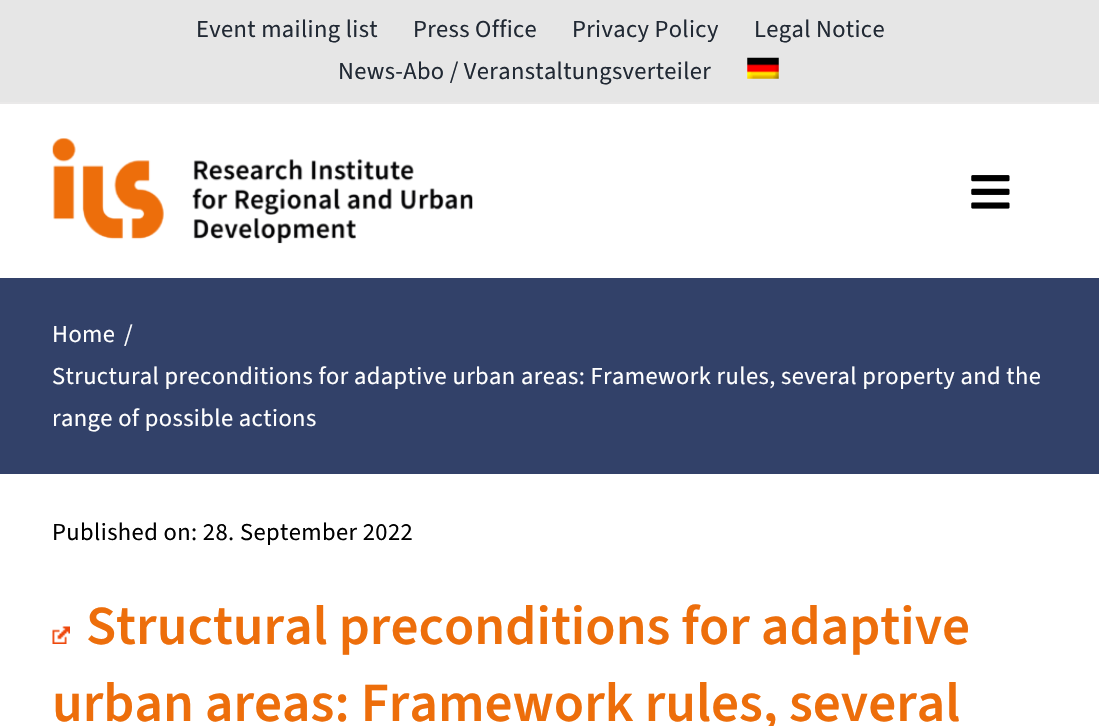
#include "include/core/SkBlurTypes.h"
#include "include/core/SkCanvas.h"
#include "include/core/SkData.h"
#include "include/core/SkFont.h"
#include "include/core/SkFontMgr.h"
#include "include/core/SkImage.h"
#include "include/core/SkMaskFilter.h"
#include "include/core/SkPaint.h"
#include "include/core/SkPathBuilder.h"
#include "include/core/SkTextBlob.h"
#include "include/effects/SkDashPathEffect.h"
#include "include/effects/SkGradientShader.h"
#include "include/utils/SkParsePath.h"

extern sk_sp<SkFontMgr> fontMgr;

void draw(SkCanvas* canvas) {
  SkPaint p;
  p.setAntiAlias(true);
  auto spacedText = [&](const char* s, float x, float y, const SkFont& font, const SkPaint& ink, float letter, float word) {
    std::vector<SkGlyphID> glyphs(font.countText(s, strlen(s), SkTextEncoding::kUTF8));
    std::vector<float> xs(glyphs.size());
    font.textToGlyphs(s, strlen(s), SkTextEncoding::kUTF8, glyphs);
    font.getXPos(glyphs, xs, x);
    float extra = 0;
    for (size_t i = 0; i < glyphs.size(); i++) {
      xs[i] += extra;
      extra += letter + word * (glyphs[i] == font.unicharToGlyph(' '));
    }
    canvas->drawTextBlob(SkTextBlob::MakeFromPosHGlyphs(glyphs, xs, y, font), 0, 0, ink);
  };
  canvas->clear(SK_ColorWHITE);
  p.setColor(SkColorSetRGB(230, 230, 230));
  canvas->drawRect(SkRect::MakeLTRB(0, 0, 1099, 102), p);
  canvas->drawImageRect(SkImages::DeferredFromEncodedData(SkData::MakeFromFileName("images/1.png")), SkRect::MakeLTRB(747, 57, 779, 79), SkSamplingOptions());
  p.setColor(SkColorSetRGB(234, 233, 233));
  canvas->drawRect(SkRect::MakeLTRB(0, 102, 1099, 104), p);
  canvas->drawImageRect(SkImages::DeferredFromEncodedData(SkData::MakeFromFileName("images/2.png")), SkRect::MakeLTRB(52, 138, 473, 244), SkSamplingOptions());
  canvas->drawImageRect(SkImages::DeferredFromEncodedData(SkData::MakeFromFileName("images/3.png")), SkRect::MakeLTRB(971, 175, 1010, 209), SkSamplingOptions());
  p.setColor(SkColorSetRGB(50, 65, 105));
  canvas->drawRect(SkRect::MakeLTRB(0, 278, 1099, 474), p);
  canvas->drawImageRect(SkImages::DeferredFromEncodedData(SkData::MakeFromFileName("images/4.png")), SkRect::MakeLTRB(52, 626, 70, 644), SkSamplingOptions());
  SkFont font1(fontMgr->matchFamilyStyle("Source Sans 3", SkFontStyle::Normal()), 24.5f);
  font1.setSubpixel(true);
  p.setColor(SkColorSetRGB(33, 41, 52));
  spacedText("Event mailing list", 196, 37, font1, p, 0.35f, 0);
  spacedText("Press Office", 413, 37, font1, p, 0.35f, 0);
  spacedText("Privacy Policy", 572, 37, font1, p, 0.35f, 0);
  spacedText("Legal Notice", 754, 37, font1, p, 0.35f, 0);
  spacedText("News-Abo / Veranstaltungsverteiler", 338, 79, font1, p, 0.35f, 0);
  p.setColor(SK_ColorWHITE);
  spacedText("Home", 52, 342, font1, p, 0.42f, 0);
  spacedText("/", 124, 342, font1, p, 0.42f, 0);
  spacedText("Structural preconditions for adaptive urban areas: Framework rules, several property and the", 52, 384, font1, p, 0.42f, 0);
  spacedText("range of possible actions", 52, 426, font1, p, 0.42f, 0);
  p.setColor(SK_ColorBLACK);
  spacedText("Published on: 28. September 2022", 52, 540, font1, p, 0.42f, 0);
  SkFont font2(fontMgr->matchFamilyStyle("Source Sans 3", SkFontStyle(600, SkFontStyle::kNormal_Width, SkFontStyle::kUpright_Slant)), 55.25f);
  font2.setSubpixel(true);
  p.setColor(SkColorSetRGB(237, 110, 11));
  canvas->drawString("Structural preconditions for adaptive", 86, 644, font2, p);
  canvas->drawString("urban areas: Framework rules, several", 52, 721, font2, p);
}
